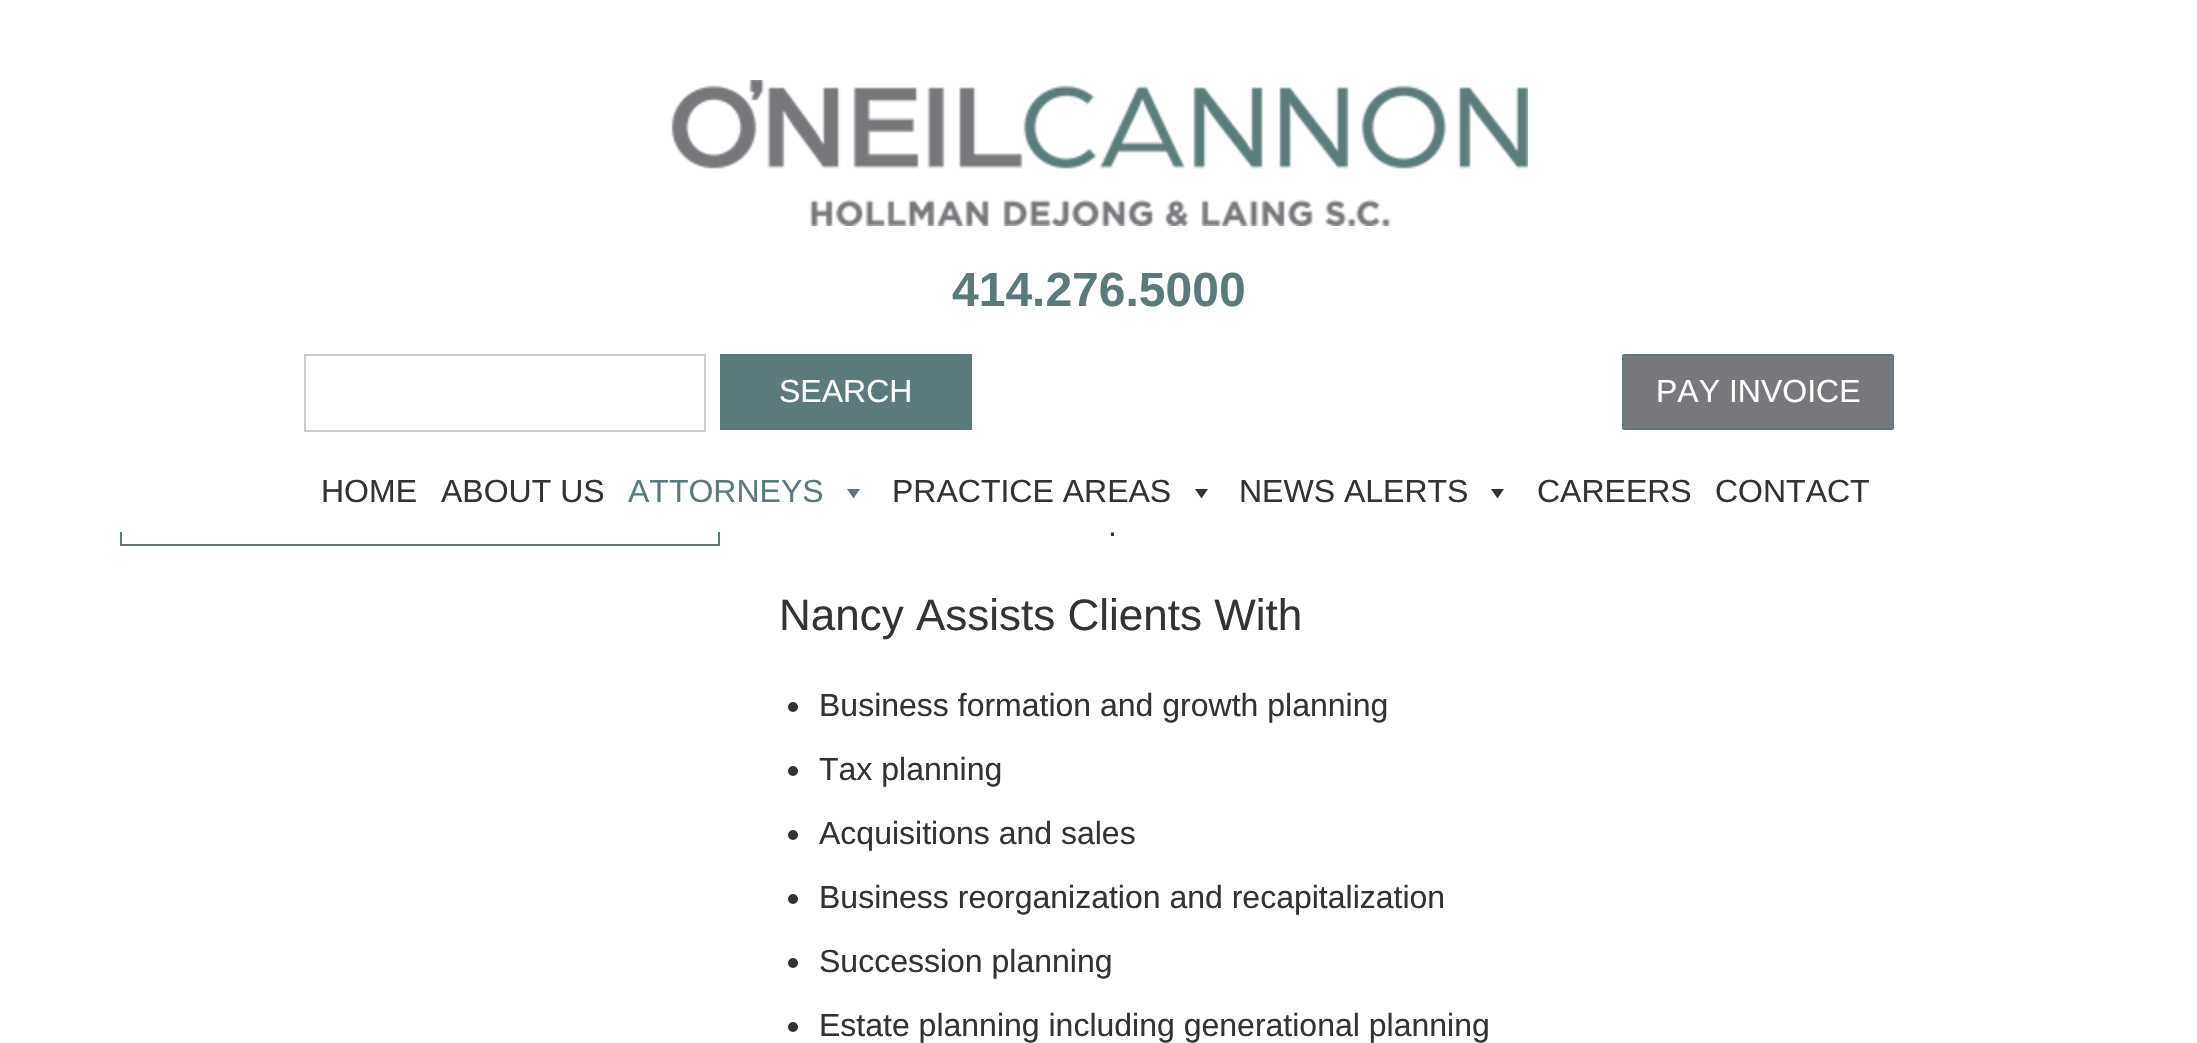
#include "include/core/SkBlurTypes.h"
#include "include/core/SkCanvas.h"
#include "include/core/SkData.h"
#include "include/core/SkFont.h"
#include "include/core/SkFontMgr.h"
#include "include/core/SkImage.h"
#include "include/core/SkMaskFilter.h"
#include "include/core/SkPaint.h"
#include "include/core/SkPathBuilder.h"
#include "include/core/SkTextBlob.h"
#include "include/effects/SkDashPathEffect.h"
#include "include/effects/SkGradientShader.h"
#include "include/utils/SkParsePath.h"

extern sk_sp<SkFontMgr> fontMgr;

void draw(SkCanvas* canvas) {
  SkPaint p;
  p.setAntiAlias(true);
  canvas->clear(SK_ColorWHITE);
  p.setStyle(SkPaint::kStroke_Style);
  p.setStrokeWidth(2);
  p.setColor(SkColorSetRGB(91, 122, 124));
  canvas->drawRect(SkRect::MakeLTRB(121, 459, 719, 545), p);
  p.setStyle(SkPaint::kFill_Style);
  p.setColor(SK_ColorWHITE);
  canvas->drawRect(SkRect::MakeLTRB(120, 458, 720, 532), p);
  canvas->drawImageRect(SkImages::DeferredFromEncodedData(SkData::MakeFromFileName("images/1.png")), SkRect::MakeLTRB(671, 80, 1528, 226), SkSamplingOptions());
  p.setStyle(SkPaint::kStroke_Style);
  p.setColor(SkColorSetRGB(204, 204, 204));
  canvas->drawRect(SkRect::MakeLTRB(305, 355, 705, 431), p);
  p.setStyle(SkPaint::kFill_Style);
  p.setColor(SkColorSetRGB(91, 122, 124));
  canvas->drawRect(SkRect::MakeLTRB(720, 354, 972, 430), p);
  p.setColor(SkColorSetRGB(119, 120, 123));
  canvas->drawRoundRect(SkRect::MakeLTRB(1623, 355, 1893, 429), 1, 1, p);
  p.setStyle(SkPaint::kStroke_Style);
  p.setColor(SkColorSetRGB(91, 122, 124));
  canvas->drawRoundRect(SkRect::MakeLTRB(1623, 355, 1893, 429), 1, 1, p);
  p.setStyle(SkPaint::kFill_Style);
  canvas->drawPath(SkPathBuilder().moveTo(860, 489).lineTo(853.5f, 498.5f).lineTo(847, 489).close().detach(), p);
  p.setColor(SkColorSetRGB(51, 51, 51));
  canvas->drawPath(SkPathBuilder().moveTo(1208, 489).lineTo(1201.5f, 498.5f).lineTo(1195, 489).close().detach(), p);
  canvas->drawPath(SkPathBuilder().moveTo(1504, 489).lineTo(1497.5f, 498.5f).lineTo(1491, 489).close().detach(), p);
  canvas->drawCircle(793, 707, 5, p);
  canvas->drawCircle(793, 771, 5, p);
  canvas->drawCircle(793, 835, 5, p);
  canvas->drawCircle(793, 899, 5, p);
  canvas->drawCircle(793, 963, 5, p);
  canvas->drawCircle(793, 1027, 5, p);
  SkFont font1(fontMgr->matchFamilyStyle("Liberation Sans", SkFontStyle::Bold()), 48);
  font1.setSubpixel(true);
  p.setColor(SkColorSetRGB(91, 122, 124));
  canvas->drawString("414.276.5000", 952, 306, font1, p);
  SkFont font2(fontMgr->matchFamilyStyle("Liberation Sans", SkFontStyle::Normal()), 32);
  font2.setSubpixel(true);
  p.setColor(SK_ColorWHITE);
  canvas->drawString("SEARCH", 779, 402, font2, p);
  canvas->drawString("PAY INVOICE", 1656, 402, font2, p);
  p.setColor(SkColorSetRGB(51, 51, 51));
  canvas->drawString("HOME", 321, 502, font2, p);
  canvas->drawString("ABOUT US", 441, 502, font2, p);
  p.setColor(SkColorSetRGB(91, 122, 124));
  canvas->drawString("ATTORNEYS", 628, 502, font2, p);
  p.setColor(SkColorSetRGB(51, 51, 51));
  canvas->drawString("PRACTICE AREAS", 892, 502, font2, p);
  canvas->drawString("NEWS ALERTS", 1239, 502, font2, p);
  canvas->drawString("CAREERS", 1537, 502, font2, p);
  canvas->drawString("CONTACT", 1715, 502, font2, p);
  canvas->drawString(".", 1108, 536, font2, p);
  SkFont font3(fontMgr->matchFamilyStyle("Liberation Sans", SkFontStyle::Normal()), 44);
  font3.setSubpixel(true);
  canvas->drawString("Nancy Assists Clients With", 779, 630, font3, p);
  canvas->drawString("Business formation and growth planning", 819, 716, font2, p);
  canvas->drawString("Tax planning", 819, 780, font2, p);
  canvas->drawString("Acquisitions and sales", 819, 844, font2, p);
  canvas->drawString("Business reorganization and recapitalization", 819, 908, font2, p);
  canvas->drawString("Succession planning", 819, 972, font2, p);
  canvas->drawString("Estate planning including generational planning", 819, 1036, font2, p);
}
